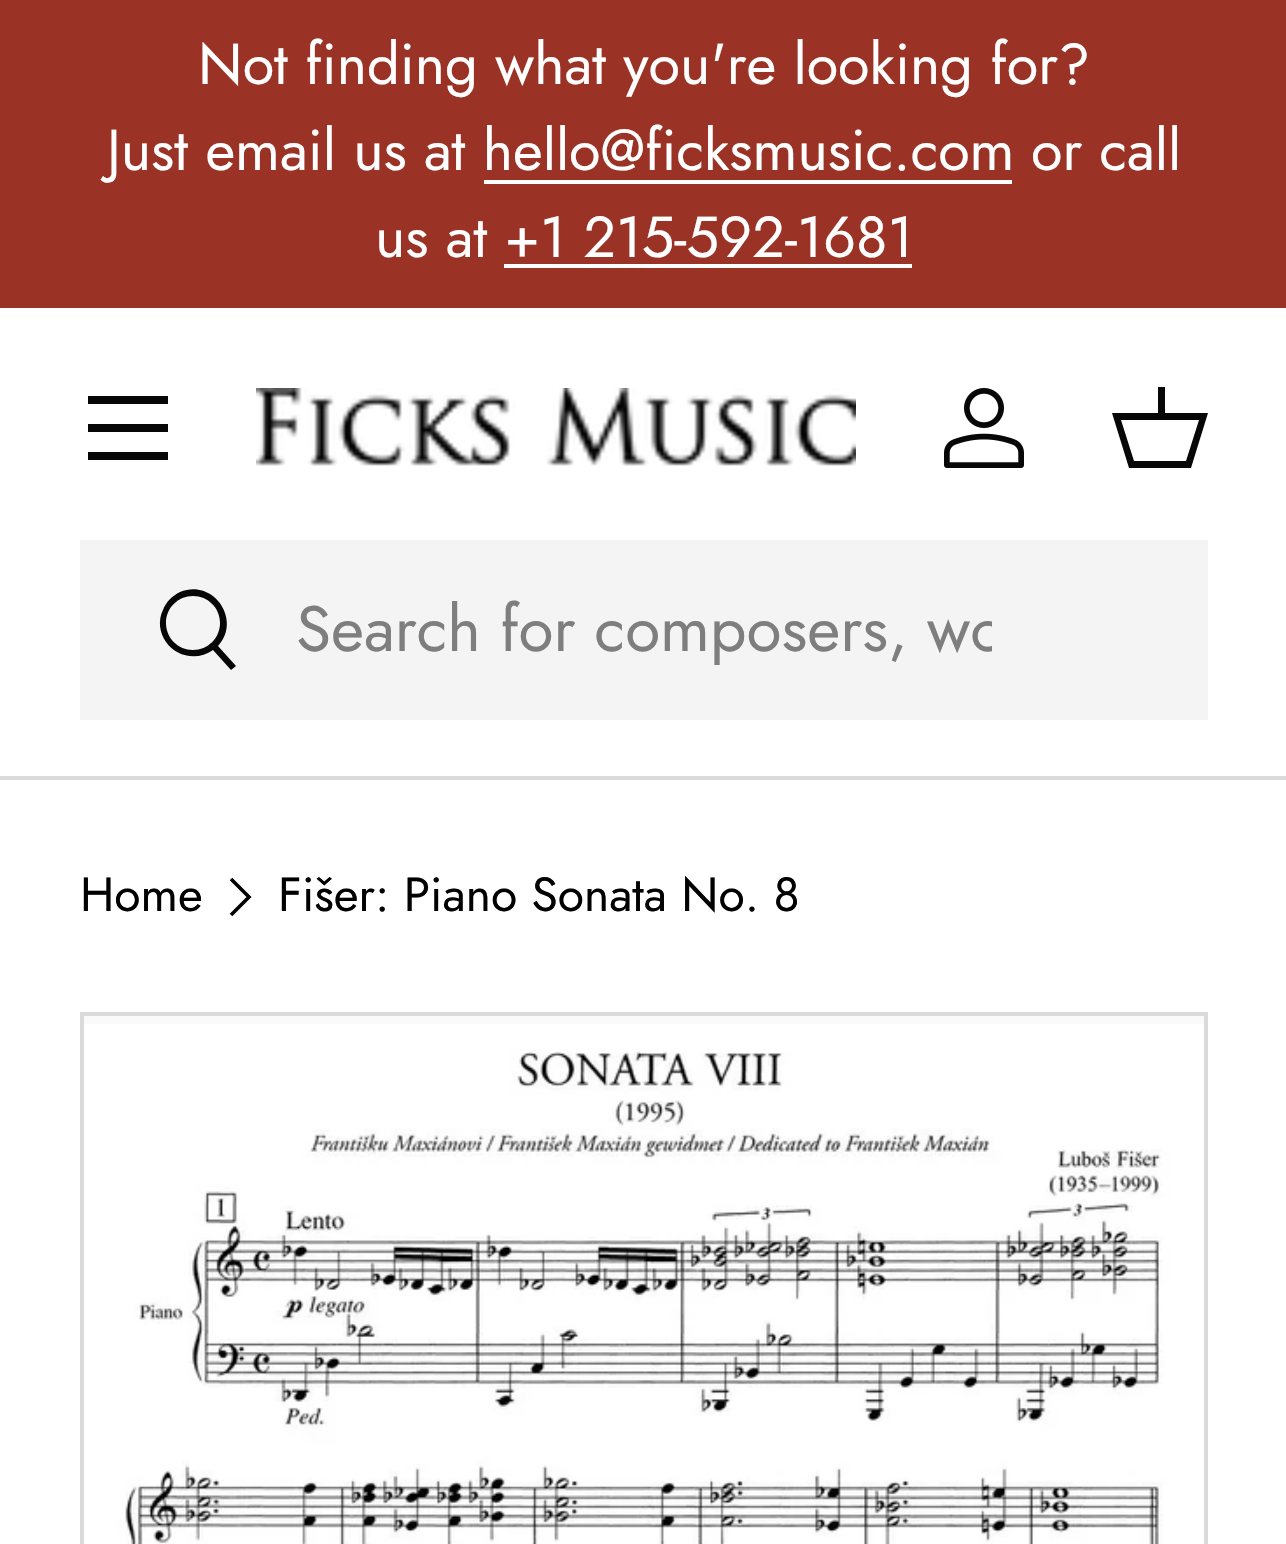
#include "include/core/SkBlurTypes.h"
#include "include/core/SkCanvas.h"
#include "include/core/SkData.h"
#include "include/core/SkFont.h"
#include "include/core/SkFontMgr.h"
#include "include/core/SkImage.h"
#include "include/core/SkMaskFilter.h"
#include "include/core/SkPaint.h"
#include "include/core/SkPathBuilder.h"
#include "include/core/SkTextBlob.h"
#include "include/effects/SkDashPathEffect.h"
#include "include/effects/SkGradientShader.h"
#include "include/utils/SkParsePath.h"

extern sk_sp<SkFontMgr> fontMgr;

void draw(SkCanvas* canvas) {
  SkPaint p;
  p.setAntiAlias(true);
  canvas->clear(SK_ColorWHITE);
  p.setColor(SkColorSetRGB(154, 51, 37));
  canvas->drawRect(SkRect::MakeLTRB(0, 0, 1286, 308), p);
  p.setColor(SK_ColorWHITE);
  canvas->drawRect(SkRect::MakeLTRB(484, 180, 1012, 184), p);
  canvas->drawRect(SkRect::MakeLTRB(504, 264, 912, 268), p);
  p.setColor(SkColorSetRGB(218, 218, 218));
  canvas->drawRect(SkRect::MakeLTRB(0, 776, 1286, 780), p);
  p.setColor(SkColorSetRGB(7, 7, 7));
  canvas->drawRect(SkRect::MakeLTRB(88, 396, 168, 404), p);
  canvas->drawRect(SkRect::MakeLTRB(88, 452, 168, 460), p);
  canvas->drawRect(SkRect::MakeLTRB(88, 424, 168, 432), p);
  canvas->drawImageRect(SkImages::DeferredFromEncodedData(SkData::MakeFromFileName("images/1.png")), SkRect::MakeLTRB(256, 388, 856, 466), SkSamplingOptions());
  canvas->drawImageRect(SkImages::DeferredFromEncodedData(SkData::MakeFromFileName("images/2.png")), SkRect::MakeLTRB(944, 388, 1024, 468), SkSamplingOptions());
  canvas->drawPath(SkPathBuilder().moveTo(1158, 413).lineTo(1158, 387).lineTo(1165, 387).lineTo(1165, 413).lineTo(1208, 413).lineTo(1191, 468).lineTo(1129, 468).lineTo(1112, 413).close().moveTo(1121, 420).lineTo(1134, 461).lineTo(1186, 461).lineTo(1199, 420).close().detach(), p);
  p.setColor(SkColorSetRGB(244, 244, 244));
  canvas->drawRect(SkRect::MakeLTRB(80, 540, 1208, 720), p);
  p.setColor(SkColorSetRGB(7, 7, 7));
  canvas->drawPath(SkPathBuilder().moveTo(218, 646).lineTo(236, 666).lineTo(231, 670).lineTo(213, 650).cubicTo(198, 661, 176, 657, 166, 642).cubicTo(159, 632, 158, 620, 163, 610).cubicTo(166, 602, 172, 596, 180, 592).cubicTo(214, 578, 242, 621, 218, 646).close().moveTo(193, 650).cubicTo(208, 650, 220, 638, 220, 623).cubicTo(220, 608, 208, 596, 193, 596).cubicTo(178, 596, 166, 608, 166, 623).cubicTo(166, 638, 178, 650, 193, 650).close().detach(), p);
  p.setStyle(SkPaint::kStroke_Style);
  p.setStrokeWidth(3.6f);
  p.setColor(SK_ColorBLACK);
  canvas->drawPath(SkPathBuilder().moveTo(231, 879).lineTo(249, 897).lineTo(231, 915).detach(), p);
  p.setStyle(SkPaint::kFill_Style);
  p.setColor(SkColorSetRGB(250, 250, 250));
  canvas->drawRect(SkRect::MakeLTRB(84, 1016, 1204, 1024), p);
  p.setStyle(SkPaint::kStroke_Style);
  p.setStrokeWidth(4);
  p.setColor(SkColorSetRGB(218, 218, 218));
  canvas->drawRect(SkRect::MakeLTRB(82, 1014, 1206, 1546), p);
  canvas->drawImageRect(SkImages::DeferredFromEncodedData(SkData::MakeFromFileName("images/3.png")), SkRect::MakeLTRB(84, 1024, 1204, 1544), SkSamplingOptions());
  SkFont font1(fontMgr->matchFamilyStyle("Jost", SkFontStyle::Normal()), 57.6f);
  font1.setSubpixel(true);
  p.setStyle(SkPaint::kFill_Style);
  p.setColor(SK_ColorWHITE);
  canvas->drawString("Not finding what you're looking for?", 198, 84, font1, p);
  canvas->drawString("Just email us at hello@ficksmusic.com", 107, 170, font1, p);
  canvas->drawString("or call", 1031, 170, font1, p);
  canvas->drawString("us at +1 215-592-1681", 375, 257, font1, p);
  canvas->save();
  canvas->clipRect(SkRect::MakeLTRB(296, 584, 992, 676));
  SkFont font2(fontMgr->matchFamilyStyle("Jost", SkFontStyle::Normal()), 64);
  font2.setSubpixel(true);
  p.setColor(SkColorSetRGB(126, 126, 126));
  canvas->drawString("Search for composers, wo", 296, 651, font2, p);
  canvas->restore();
  SkFont font3(fontMgr->matchFamilyStyle("Jost", SkFontStyle::Normal()), 48);
  font3.setSubpixel(true);
  p.setColor(SK_ColorBLACK);
  canvas->drawString("Home", 80, 911, font3, p);
  canvas->drawString("Fišer: Piano Sonata No. 8", 278, 911, font3, p);
}
